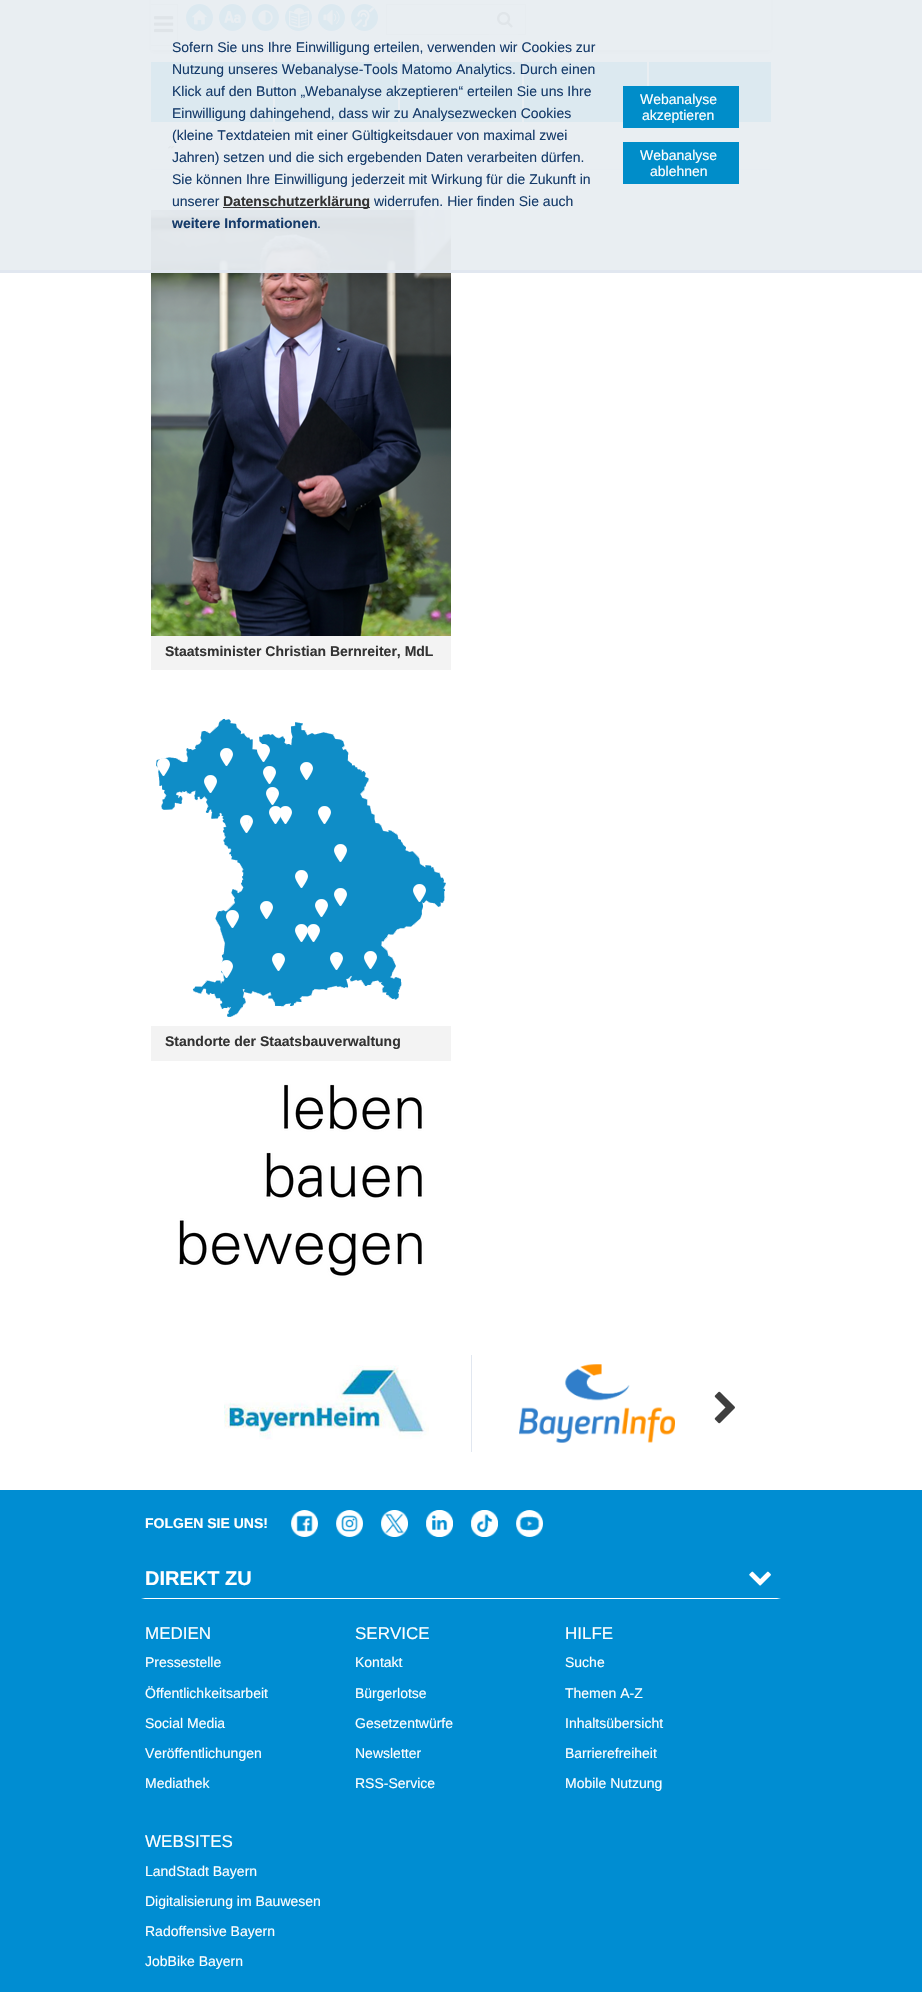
#include "include/core/SkBlurTypes.h"
#include "include/core/SkCanvas.h"
#include "include/core/SkData.h"
#include "include/core/SkFont.h"
#include "include/core/SkFontMgr.h"
#include "include/core/SkImage.h"
#include "include/core/SkMaskFilter.h"
#include "include/core/SkPaint.h"
#include "include/core/SkPathBuilder.h"
#include "include/core/SkTextBlob.h"
#include "include/effects/SkDashPathEffect.h"
#include "include/effects/SkGradientShader.h"
#include "include/utils/SkParsePath.h"

extern sk_sp<SkFontMgr> fontMgr;

void draw(SkCanvas* canvas) {
  SkPaint p;
  p.setAntiAlias(true);
  canvas->clear(SK_ColorWHITE);
  p.setColor(SkColorSetARGB(77, 0, 0, 0));
  p.setMaskFilter(SkMaskFilter::MakeBlur(kNormal_SkBlurStyle, 2.5f));
  canvas->drawRect(SkRect::MakeLTRB(151, -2, 771, 52), p);
  p.setMaskFilter(nullptr);
  p.setColor(SK_ColorWHITE);
  canvas->drawRect(SkRect::MakeLTRB(151, 0, 771, 50), p);
  p.setColor(SkColorSetRGB(243, 243, 243));
  canvas->drawRect(SkRect::MakeLTRB(151, 5, 177, 45), p);
  p.setColor(SkColorSetRGB(215, 215, 215));
  canvas->drawRect(SkRect::MakeLTRB(151, 4, 178, 5), p);
  canvas->drawRect(SkRect::MakeLTRB(177, 4, 178, 46), p);
  canvas->drawRect(SkRect::MakeLTRB(151, 45, 178, 46), p);
  canvas->drawImageRect(SkImages::DeferredFromEncodedData(SkData::MakeFromFileName("images/1.png")), SkRect::MakeLTRB(154, 16, 174, 33), SkSamplingOptions());
  p.setColor(SkColorSetRGB(0, 141, 210));
  canvas->drawCircle(199.5f, 17.5f, 13.5f, p);
  canvas->drawImageRect(SkImages::DeferredFromEncodedData(SkData::MakeFromFileName("images/2.png")), SkRect::MakeLTRB(192, 10, 207, 25), SkSamplingOptions());
  p.setColor(SkColorSetARGB(179, 255, 255, 255));
  p.setMaskFilter(SkMaskFilter::MakeBlur(kNormal_SkBlurStyle, 6));
  canvas->drawRoundRect(SkRect::MakeLTRB(219, 4, 246, 31), 13.5f, 13.5f, p);
  p.setMaskFilter(nullptr);
  p.setColor(SkColorSetRGB(0, 141, 210));
  canvas->drawCircle(232.5f, 17.5f, 13.5f, p);
  canvas->drawImageRect(SkImages::DeferredFromEncodedData(SkData::MakeFromFileName("images/3.png")), SkRect::MakeLTRB(224, 11, 241, 23), SkSamplingOptions());
  p.setColor(SkColorSetARGB(179, 255, 255, 255));
  p.setMaskFilter(SkMaskFilter::MakeBlur(kNormal_SkBlurStyle, 6));
  canvas->drawRoundRect(SkRect::MakeLTRB(252, 4, 279, 31), 13.5f, 13.5f, p);
  p.setMaskFilter(nullptr);
  p.setColor(SkColorSetRGB(0, 141, 210));
  canvas->drawCircle(265.5f, 17.5f, 13.5f, p);
  canvas->drawImageRect(SkImages::DeferredFromEncodedData(SkData::MakeFromFileName("images/4.png")), SkRect::MakeLTRB(258, 10, 273, 25), SkSamplingOptions());
  p.setColor(SkColorSetARGB(179, 255, 255, 255));
  p.setMaskFilter(SkMaskFilter::MakeBlur(kNormal_SkBlurStyle, 6));
  canvas->drawRoundRect(SkRect::MakeLTRB(285, 4, 312, 31), 13.5f, 13.5f, p);
  p.setMaskFilter(nullptr);
  p.setColor(SkColorSetRGB(0, 141, 210));
  canvas->drawCircle(298.5f, 17.5f, 13.5f, p);
  canvas->drawImageRect(SkImages::DeferredFromEncodedData(SkData::MakeFromFileName("images/5.png")), SkRect::MakeLTRB(289, 8, 309, 28), SkSamplingOptions());
  p.setColor(SkColorSetARGB(179, 255, 255, 255));
  p.setMaskFilter(SkMaskFilter::MakeBlur(kNormal_SkBlurStyle, 6));
  canvas->drawRoundRect(SkRect::MakeLTRB(318, 4, 345, 31), 13.5f, 13.5f, p);
  p.setMaskFilter(nullptr);
  p.setColor(SkColorSetRGB(0, 141, 210));
  canvas->drawCircle(331.5f, 17.5f, 13.5f, p);
  canvas->drawImageRect(SkImages::DeferredFromEncodedData(SkData::MakeFromFileName("images/6.png")), SkRect::MakeLTRB(323, 10, 340, 25), SkSamplingOptions());
  canvas->drawCircle(364.5f, 17.5f, 13.5f, p);
  canvas->drawImageRect(SkImages::DeferredFromEncodedData(SkData::MakeFromFileName("images/7.png")), SkRect::MakeLTRB(355, 7, 374, 27), SkSamplingOptions());
  p.setStyle(SkPaint::kStroke_Style);
  p.setStrokeWidth(1);
  p.setColor(SkColorSetRGB(215, 215, 215));
  canvas->drawRect(SkRect::MakeLTRB(386.5f, 4.5f, 525.5f, 34.5f), p);
  p.setStyle(SkPaint::kFill_Style);
  p.setColor(SkColorSetARGB(51, 255, 255, 255));
  canvas->drawRoundRect(SkRect::MakeLTRB(489, 7, 518, 36), 3, 3, p);
  canvas->drawImageRect(SkImages::DeferredFromEncodedData(SkData::MakeFromFileName("images/8.png")), SkRect::MakeLTRB(497, 11, 513, 28), SkSamplingOptions());
  p.setColor(SkColorSetRGB(0, 141, 210));
  canvas->drawRect(SkRect::MakeLTRB(151, 62, 273, 122), p);
  canvas->drawRect(SkRect::MakeLTRB(275, 62, 398, 122), p);
  canvas->drawRect(SkRect::MakeLTRB(400, 62, 522, 122), p);
  canvas->drawRect(SkRect::MakeLTRB(524, 62, 647, 122), p);
  canvas->drawRect(SkRect::MakeLTRB(649, 62, 771, 122), p);
  p.setColor(SkColorSetRGB(243, 243, 243));
  canvas->drawRect(SkRect::MakeLTRB(151, 146, 771, 169), p);
  p.setColor(SkColorSetRGB(225, 231, 240));
  canvas->drawRect(SkRect::MakeLTRB(151, 169, 771, 170), p);
  canvas->drawImageRect(SkImages::DeferredFromEncodedData(SkData::MakeFromFileName("images/9.png")), SkRect::MakeLTRB(168, 146, 175, 149), SkSamplingOptions());
  canvas->drawImageRect(SkImages::DeferredFromEncodedData(SkData::MakeFromFileName("images/10.png")), SkRect::MakeLTRB(151, 210, 451, 636), SkSamplingOptions());
  p.setColor(SkColorSetARGB(242, 232, 237, 241));
  canvas->drawRect(SkRect::MakeLTRB(0, 0, 922, 270), p);
  p.setColor(SkColorSetRGB(225, 231, 240));
  canvas->drawRect(SkRect::MakeLTRB(0, 270, 922, 273), p);
  p.setColor(SkColorSetRGB(51, 51, 51));
  canvas->drawRect(SkRect::MakeLTRB(223, 207, 370, 208), p);
  p.setColor(SkColorSetRGB(0, 141, 201));
  canvas->drawRect(SkRect::MakeLTRB(623, 86, 739, 128), p);
  canvas->drawRect(SkRect::MakeLTRB(623, 142, 739, 184), p);
  p.setColor(SkColorSetRGB(243, 243, 243));
  canvas->drawRect(SkRect::MakeLTRB(151, 636, 451, 670), p);
  canvas->drawRect(SkRect::MakeLTRB(151, 1026, 451, 1061), p);
  canvas->drawImageRect(SkImages::DeferredFromEncodedData(SkData::MakeFromFileName("images/11.png")), SkRect::MakeLTRB(151, 713, 451, 1026), SkSamplingOptions());
  canvas->drawImageRect(SkImages::DeferredFromEncodedData(SkData::MakeFromFileName("images/12.png")), SkRect::MakeLTRB(179, 1084, 424, 1278), SkSamplingOptions());
  p.setColor(SkColorSetRGB(225, 231, 240));
  canvas->drawRect(SkRect::MakeLTRB(471, 1355, 472, 1452), p);
  canvas->drawImageRect(SkImages::DeferredFromEncodedData(SkData::MakeFromFileName("images/13.png")), SkRect::MakeLTRB(224, 1365, 429, 1440), SkSamplingOptions());
  canvas->drawImageRect(SkImages::DeferredFromEncodedData(SkData::MakeFromFileName("images/14.png")), SkRect::MakeLTRB(519, 1364, 675, 1443), SkSamplingOptions());
  canvas->drawImageRect(SkImages::DeferredFromEncodedData(SkData::MakeFromFileName("images/15.png")), SkRect::MakeLTRB(714, 1391, 735, 1424), SkSamplingOptions());
  p.setColor(SkColorSetRGB(0, 141, 210));
  canvas->drawRect(SkRect::MakeLTRB(0, 1490, 922, 1992), p);
  canvas->drawImageRect(SkImages::DeferredFromEncodedData(SkData::MakeFromFileName("images/16.png")), SkRect::MakeLTRB(291, 1510, 318, 1537), SkSamplingOptions());
  canvas->drawImageRect(SkImages::DeferredFromEncodedData(SkData::MakeFromFileName("images/17.png")), SkRect::MakeLTRB(336, 1510, 363, 1537), SkSamplingOptions());
  canvas->drawImageRect(SkImages::DeferredFromEncodedData(SkData::MakeFromFileName("images/18.png")), SkRect::MakeLTRB(381, 1510, 408, 1537), SkSamplingOptions());
  canvas->drawImageRect(SkImages::DeferredFromEncodedData(SkData::MakeFromFileName("images/19.png")), SkRect::MakeLTRB(426, 1510, 453, 1537), SkSamplingOptions());
  canvas->drawImageRect(SkImages::DeferredFromEncodedData(SkData::MakeFromFileName("images/20.png")), SkRect::MakeLTRB(471, 1510, 498, 1537), SkSamplingOptions());
  canvas->drawImageRect(SkImages::DeferredFromEncodedData(SkData::MakeFromFileName("images/21.png")), SkRect::MakeLTRB(516, 1510, 543, 1537), SkSamplingOptions());
  p.setColor(SK_ColorWHITE);
  canvas->drawPath(SkPathBuilder().moveTo(781, 1599).lineTo(141, 1599).lineTo(145, 1598).lineTo(777, 1598).close().detach(), p);
  canvas->drawImageRect(SkImages::DeferredFromEncodedData(SkData::MakeFromFileName("images/22.png")), SkRect::MakeLTRB(749, 1571, 771, 1586), SkSamplingOptions());
  SkFont font1(fontMgr->matchFamilyStyle("Liberation Sans", SkFontStyle::Normal()), 14);
  font1.setSubpixel(true);
  p.setColor(SkColorSetRGB(21, 59, 106));
  canvas->drawString("Sofern Sie uns Ihre Einwilligung erteilen, verwenden wir Cookies zur", 172, 52, font1, p);
  canvas->drawString("Nutzung unseres Webanalyse-Tools Matomo Analytics. Durch einen", 172, 74, font1, p);
  canvas->drawString("Klick auf den Button „Webanalyse akzeptieren“ erteilen Sie uns Ihre", 172, 96, font1, p);
  canvas->drawString("Einwilligung dahingehend, dass wir zu Analysezwecken Cookies", 172, 118, font1, p);
  canvas->drawString("(kleine Textdateien mit einer Gültigkeitsdauer von maximal zwei", 172, 140, font1, p);
  canvas->drawString("Jahren) setzen und die sich ergebenden Daten verarbeiten dürfen.", 172, 162, font1, p);
  canvas->drawString("Sie können Ihre Einwilligung jederzeit mit Wirkung für die Zukunft in", 172, 184, font1, p);
  canvas->drawString("unserer", 172, 206, font1, p);
  SkFont font2(fontMgr->matchFamilyStyle("Liberation Sans", SkFontStyle::Bold()), 14);
  font2.setSubpixel(true);
  p.setColor(SkColorSetRGB(51, 51, 51));
  canvas->drawString("Datenschutzerklärung", 223, 206, font2, p);
  p.setColor(SkColorSetRGB(21, 59, 106));
  canvas->drawString("widerrufen. Hier finden Sie auch", 374, 206, font1, p);
  canvas->drawString("weitere Informationen", 172, 228, font2, p);
  canvas->drawString(".", 317, 228, font1, p);
  p.setColor(SK_ColorWHITE);
  canvas->drawString("Webanalyse", 640, 104, font1, p);
  canvas->drawString("akzeptieren", 642, 120, font1, p);
  canvas->drawString("Webanalyse", 640, 160, font1, p);
  canvas->drawString("ablehnen", 650, 176, font1, p);
  p.setColor(SkColorSetRGB(51, 51, 51));
  canvas->drawString("Staatsminister Christian Bernreiter, MdL", 165, 656, font2, p);
  canvas->drawString("Standorte der Staatsbauverwaltung", 165, 1046, font2, p);
  p.setColor(SK_ColorWHITE);
  canvas->drawString("FOLGEN SIE UNS!", 145, 1528, font2, p);
  SkFont font3(fontMgr->matchFamilyStyle("Liberation Sans", SkFontStyle::Bold()), 20);
  font3.setSubpixel(true);
  canvas->drawString("DIREKT ZU", 145, 1585, font3, p);
  SkFont font4(fontMgr->matchFamilyStyle("Liberation Sans", SkFontStyle::Normal()), 17);
  font4.setSubpixel(true);
  canvas->drawString("MEDIEN", 145, 1639, font4, p);
  canvas->drawString("Pressestelle", 145, 1667, font1, p);
  canvas->drawString("Öffentlichkeitsarbeit", 145, 1698, font1, p);
  canvas->drawString("Social Media", 145, 1728, font1, p);
  canvas->drawString("Veröffentlichungen", 145, 1758, font1, p);
  canvas->drawString("Mediathek", 145, 1788, font1, p);
  canvas->drawString("SERVICE", 355, 1639, font4, p);
  canvas->drawString("Kontakt", 355, 1667, font1, p);
  canvas->drawString("Bürgerlotse", 355, 1698, font1, p);
  canvas->drawString("Gesetzentwürfe", 355, 1728, font1, p);
  canvas->drawString("Newsletter", 355, 1758, font1, p);
  canvas->drawString("RSS-Service", 355, 1788, font1, p);
  canvas->drawString("HILFE", 565, 1639, font4, p);
  canvas->drawString("Suche", 565, 1667, font1, p);
  canvas->drawString("Themen A-Z", 565, 1698, font1, p);
  canvas->drawString("Inhaltsübersicht", 565, 1728, font1, p);
  canvas->drawString("Barrierefreiheit", 565, 1758, font1, p);
  canvas->drawString("Mobile Nutzung", 565, 1788, font1, p);
  canvas->drawString("WEBSITES", 145, 1847, font4, p);
  canvas->drawString("LandStadt Bayern", 145, 1876, font1, p);
  canvas->drawString("Digitalisierung im Bauwesen", 145, 1906, font1, p);
  canvas->drawString("Radoffensive Bayern", 145, 1936, font1, p);
  canvas->drawString("JobBike Bayern", 145, 1966, font1, p);
}
